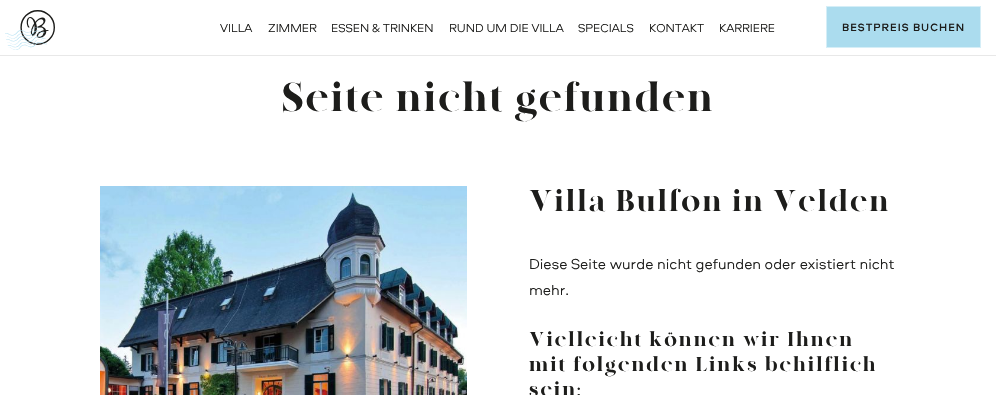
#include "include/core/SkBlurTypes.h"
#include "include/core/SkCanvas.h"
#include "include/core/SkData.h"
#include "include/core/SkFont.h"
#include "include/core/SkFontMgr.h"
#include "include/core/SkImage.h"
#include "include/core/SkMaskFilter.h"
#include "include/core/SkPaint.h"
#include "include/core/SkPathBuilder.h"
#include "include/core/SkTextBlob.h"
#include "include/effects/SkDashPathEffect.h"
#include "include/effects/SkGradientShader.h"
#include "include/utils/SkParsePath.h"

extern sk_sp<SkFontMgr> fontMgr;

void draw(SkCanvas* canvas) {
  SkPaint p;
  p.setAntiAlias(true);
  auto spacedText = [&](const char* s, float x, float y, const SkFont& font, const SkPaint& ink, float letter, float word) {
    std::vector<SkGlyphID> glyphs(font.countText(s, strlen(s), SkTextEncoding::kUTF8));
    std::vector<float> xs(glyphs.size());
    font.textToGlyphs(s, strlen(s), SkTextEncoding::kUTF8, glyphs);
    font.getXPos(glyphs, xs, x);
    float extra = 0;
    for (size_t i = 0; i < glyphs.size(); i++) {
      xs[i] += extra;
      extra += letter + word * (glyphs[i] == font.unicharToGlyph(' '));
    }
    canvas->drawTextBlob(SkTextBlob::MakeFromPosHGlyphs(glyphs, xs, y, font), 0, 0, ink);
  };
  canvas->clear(SK_ColorWHITE);
  canvas->drawImageRect(SkImages::DeferredFromEncodedData(SkData::MakeFromFileName("images/1.png")), SkRect::MakeLTRB(5, 10, 55, 50), SkSamplingOptions());
  p.setColor(SkColorSetRGB(171, 220, 238));
  canvas->drawRect(SkRect::MakeLTRB(826.5f, 6.5f, 980.5f, 47.5f), p);
  p.setStyle(SkPaint::kStroke_Style);
  p.setStrokeWidth(1);
  p.setColor(SkColorSetRGB(213, 238, 247));
  canvas->drawRect(SkRect::MakeLTRB(826.5f, 6.5f, 980.5f, 47.5f), p);
  p.setStyle(SkPaint::kFill_Style);
  p.setColor(SkColorSetRGB(232, 232, 232));
  canvas->drawRect(SkRect::MakeLTRB(0, 55, 996, 56), p);
  canvas->drawImageRect(SkImages::DeferredFromEncodedData(SkData::MakeFromFileName("images/2.png")), SkRect::MakeLTRB(100, 186, 467, 395), SkSamplingOptions());
  SkFont font1(fontMgr->matchFamilyStyle("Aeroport", SkFontStyle(300, SkFontStyle::kNormal_Width, SkFontStyle::kUpright_Slant)), 12);
  font1.setSubpixel(true);
  p.setColor(SkColorSetRGB(29, 29, 27));
  canvas->drawString("VILLA", 220, 32, font1, p);
  canvas->drawString("ZIMMER", 268, 32, font1, p);
  canvas->drawString("ESSEN & TRINKEN", 331, 32, font1, p);
  canvas->drawString("RUND UM DIE VILLA", 449, 32, font1, p);
  canvas->drawString("SPECIALS", 578, 32, font1, p);
  canvas->drawString("KONTAKT", 649, 32, font1, p);
  canvas->drawString("KARRIERE", 719, 32, font1, p);
  SkFont font2(fontMgr->matchFamilyStyle("Aeroport", SkFontStyle(500, SkFontStyle::kNormal_Width, SkFontStyle::kUpright_Slant)), 11);
  font2.setSubpixel(true);
  spacedText("BESTPREIS BUCHEN", 842, 31, font2, p, 1, 0);
  SkFont font3(fontMgr->matchFamilyStyle("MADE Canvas", SkFontStyle(900, SkFontStyle::kNormal_Width, SkFontStyle::kUpright_Slant)), 40);
  font3.setSubpixel(true);
  spacedText("Seite nicht gefunden", 282, 111, font3, p, 2, 0);
  SkFont font4(fontMgr->matchFamilyStyle("MADE Canvas", SkFontStyle(900, SkFontStyle::kNormal_Width, SkFontStyle::kUpright_Slant)), 30);
  font4.setSubpixel(true);
  spacedText("Villa Bulfon in Velden", 529, 211, font4, p, 2, 0);
  SkFont font5(fontMgr->matchFamilyStyle("Aeroport", SkFontStyle(300, SkFontStyle::kNormal_Width, SkFontStyle::kUpright_Slant)), 15);
  font5.setSubpixel(true);
  canvas->drawString("Diese Seite wurde nicht gefunden oder existiert nicht", 529, 269, font5, p);
  canvas->drawString("mehr.", 529, 295, font5, p);
  SkFont font6(fontMgr->matchFamilyStyle("MADE Canvas", SkFontStyle(900, SkFontStyle::kNormal_Width, SkFontStyle::kUpright_Slant)), 20);
  font6.setSubpixel(true);
  spacedText("Vielleicht können wir Ihnen", 529, 346, font6, p, 2, 0);
  spacedText("mit folgenden Links behilflich", 529, 371, font6, p, 2, 0);
  spacedText("sein:", 529, 396, font6, p, 2, 0);
}
